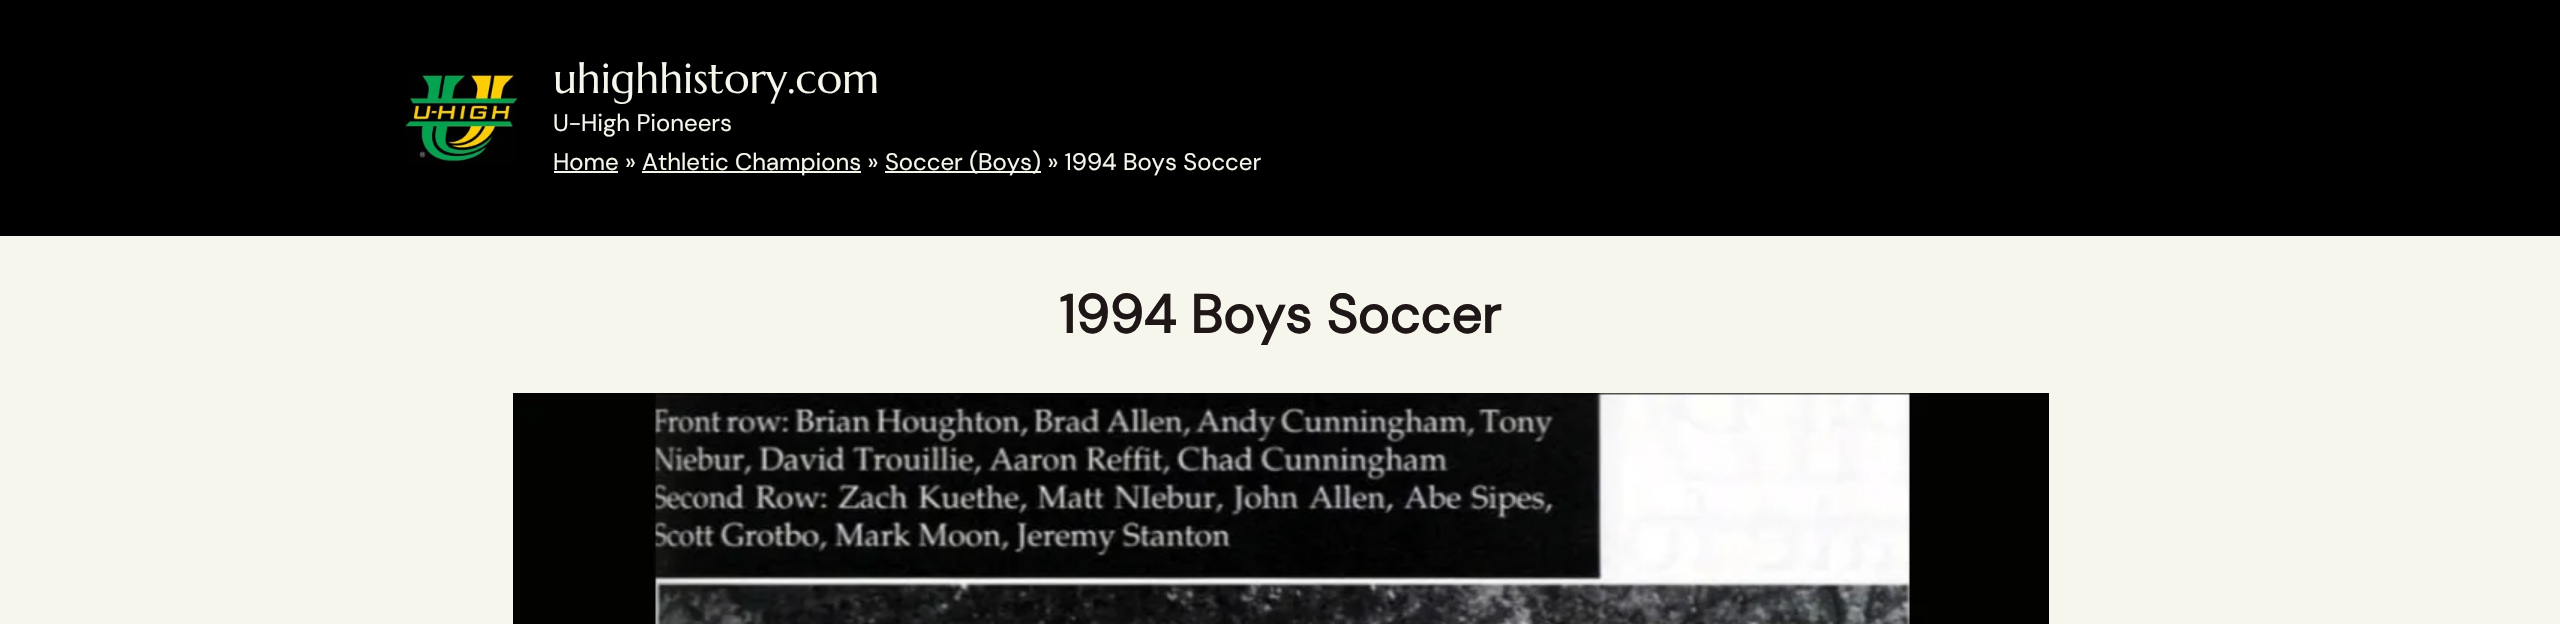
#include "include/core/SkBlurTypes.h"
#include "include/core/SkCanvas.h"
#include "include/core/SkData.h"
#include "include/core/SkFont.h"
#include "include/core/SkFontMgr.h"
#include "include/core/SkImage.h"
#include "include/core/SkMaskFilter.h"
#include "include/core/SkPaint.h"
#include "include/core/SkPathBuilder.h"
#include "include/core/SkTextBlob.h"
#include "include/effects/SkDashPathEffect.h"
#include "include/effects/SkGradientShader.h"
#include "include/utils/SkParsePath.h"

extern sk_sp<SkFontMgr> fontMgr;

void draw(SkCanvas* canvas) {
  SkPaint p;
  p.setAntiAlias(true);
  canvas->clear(SkColorSetRGB(246, 246, 237));
  p.setColor(SK_ColorBLACK);
  canvas->drawRect(SkRect::MakeLTRB(0, 0, 2560, 236), p);
  canvas->drawImageRect(SkImages::DeferredFromEncodedData(SkData::MakeFromFileName("images/1.png")), SkRect::MakeLTRB(405, 73, 518, 164), SkSamplingOptions());
  p.setColor(SkColorSetRGB(246, 246, 237));
  canvas->drawRect(SkRect::MakeLTRB(554, 171, 618, 173), p);
  canvas->drawRect(SkRect::MakeLTRB(642, 171, 861, 173), p);
  canvas->drawRect(SkRect::MakeLTRB(885, 171, 1041, 173), p);
  canvas->drawImageRect(SkImages::DeferredFromEncodedData(SkData::MakeFromFileName("images/2.png")), SkRect::MakeLTRB(513, 393, 2049, 624), SkSamplingOptions());
  SkFont font1(fontMgr->matchFamilyStyle("Marcellus", SkFontStyle::Normal()), 42);
  font1.setSubpixel(true);
  canvas->drawString("uhighhistory.com", 553, 93, font1, p);
  SkFont font2(fontMgr->matchFamilyStyle("DM Sans", SkFontStyle::Normal()), 24);
  font2.setSubpixel(true);
  canvas->drawString("U-High Pioneers", 553, 131, font2, p);
  canvas->drawString("Home »", 553, 170, font2, p);
  canvas->drawString("Athletic Champions »", 642, 170, font2, p);
  canvas->drawString("Soccer (Boys) » 1994 Boys Soccer", 885, 170, font2, p);
  SkFont font3(fontMgr->matchFamilyStyle("DM Sans", SkFontStyle::Bold()), 54);
  font3.setSubpixel(true);
  p.setColor(SkColorSetRGB(31, 23, 23));
  canvas->drawString("1994 Boys Soccer", 1059, 333, font3, p);
}
